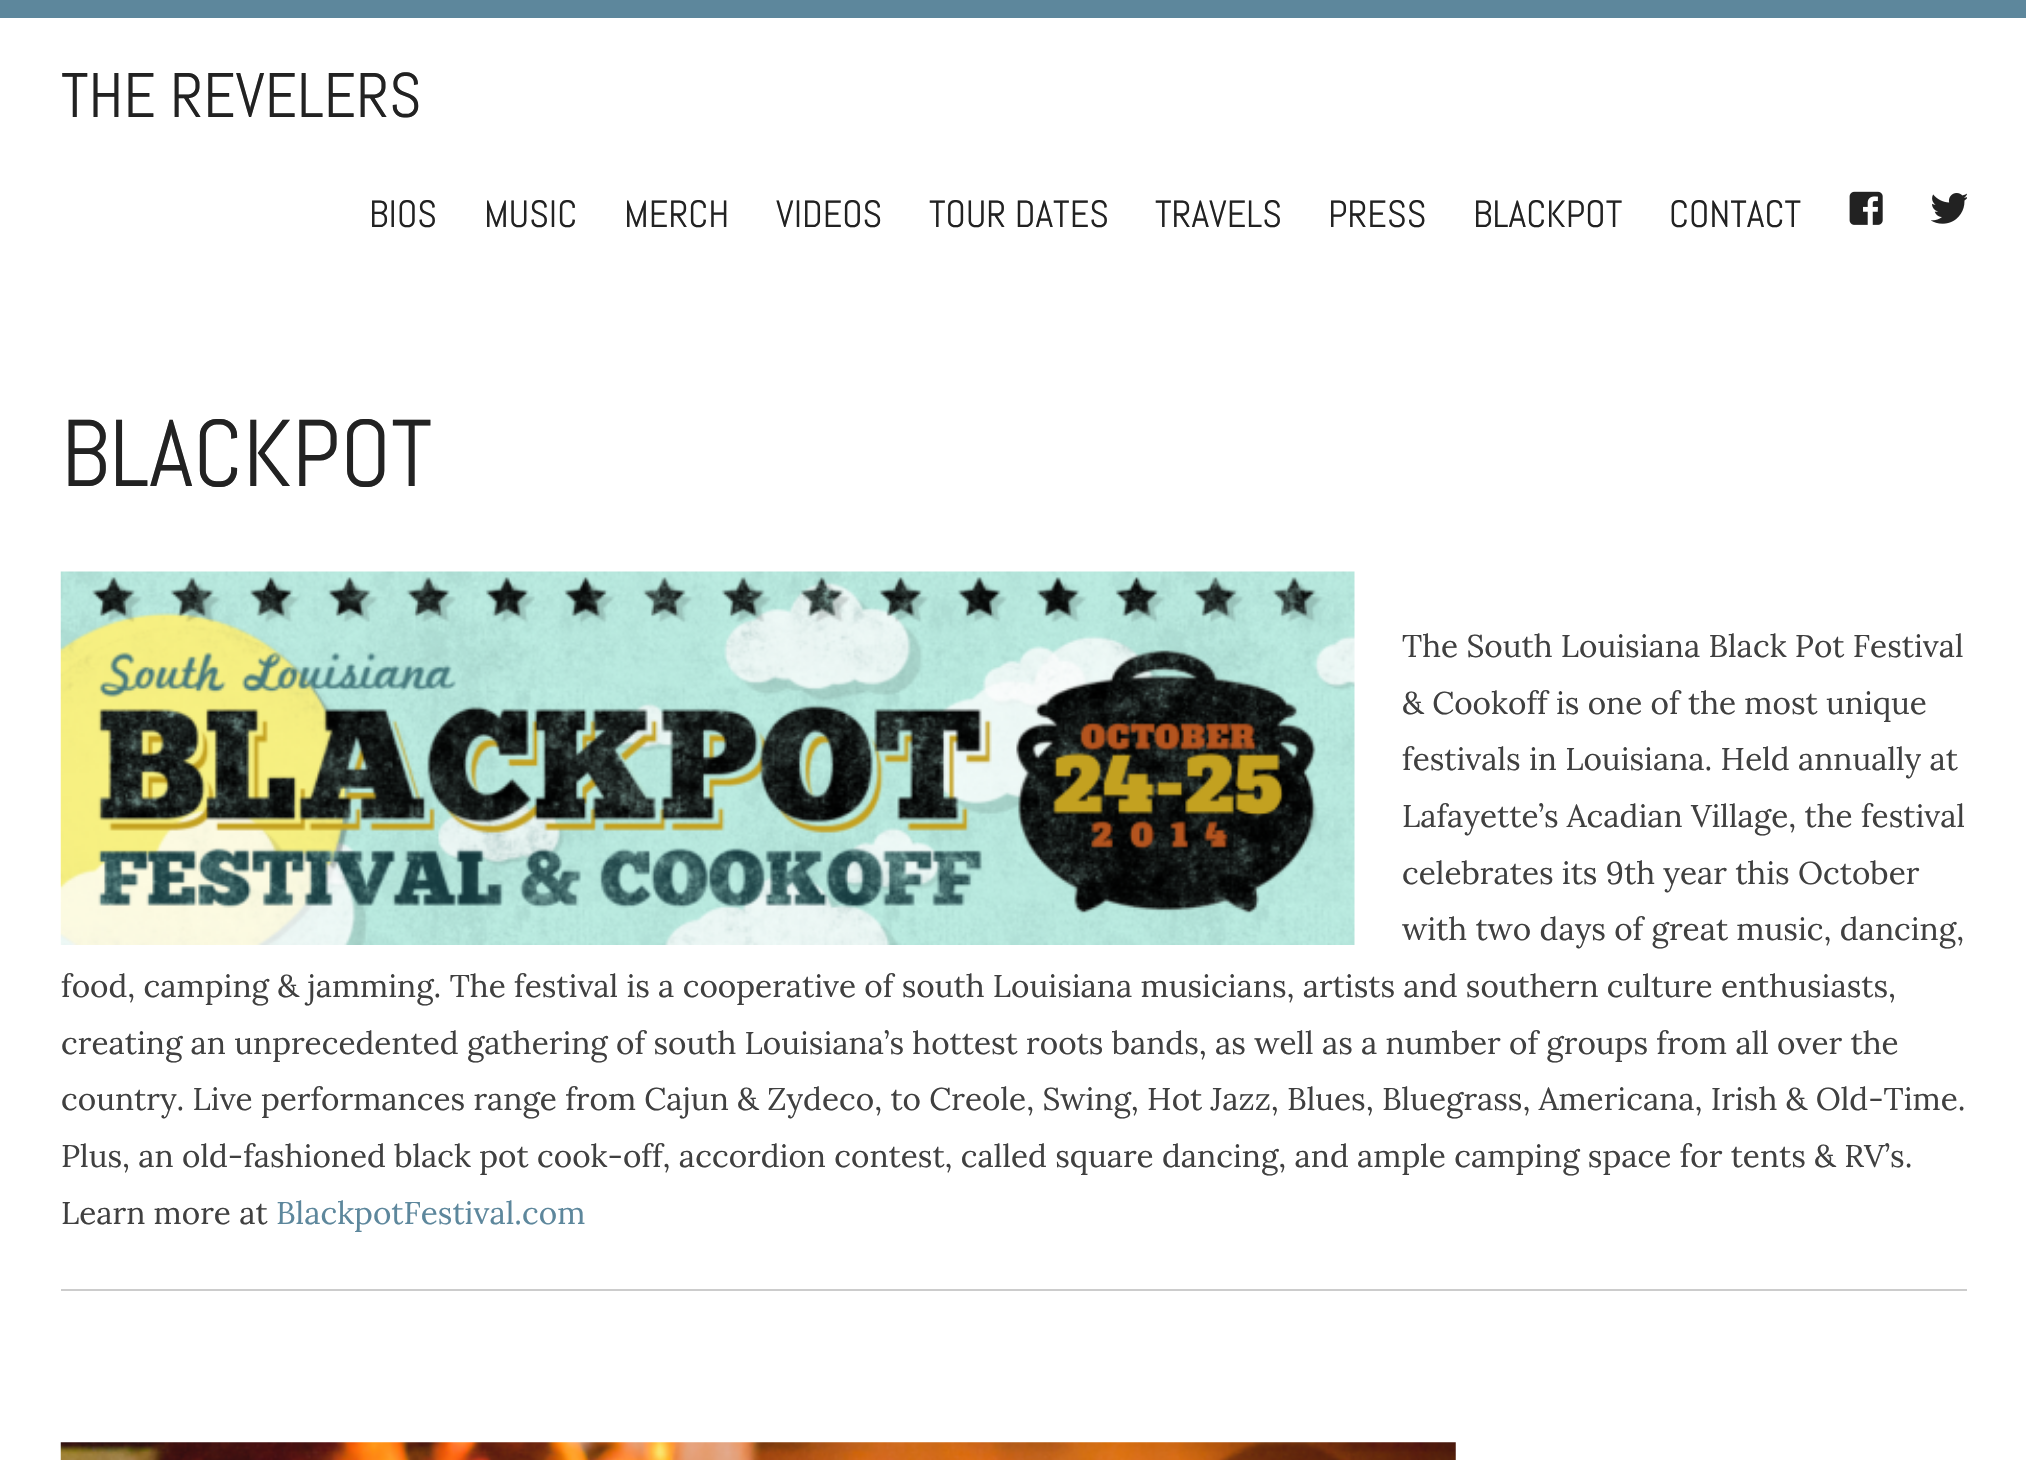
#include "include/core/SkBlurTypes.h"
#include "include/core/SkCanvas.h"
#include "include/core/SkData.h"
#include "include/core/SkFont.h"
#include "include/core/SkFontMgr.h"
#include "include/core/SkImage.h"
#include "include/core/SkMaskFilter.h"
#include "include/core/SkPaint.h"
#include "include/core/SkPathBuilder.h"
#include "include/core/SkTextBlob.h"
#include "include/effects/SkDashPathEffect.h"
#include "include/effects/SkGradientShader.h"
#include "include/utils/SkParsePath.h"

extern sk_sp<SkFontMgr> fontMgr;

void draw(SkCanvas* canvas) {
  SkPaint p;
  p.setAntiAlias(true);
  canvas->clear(SK_ColorWHITE);
  p.setColor(SkColorSetRGB(93, 135, 156));
  canvas->drawRect(SkRect::MakeLTRB(0, 0, 2026, 18), p);
  canvas->drawImageRect(SkImages::DeferredFromEncodedData(SkData::MakeFromFileName("images/1.png")), SkRect::MakeLTRB(1849, 191, 1883, 225), SkSamplingOptions());
  canvas->drawImageRect(SkImages::DeferredFromEncodedData(SkData::MakeFromFileName("images/2.png")), SkRect::MakeLTRB(1931, 193, 1967, 224), SkSamplingOptions());
  canvas->drawImageRect(SkImages::DeferredFromEncodedData(SkData::MakeFromFileName("images/3.png")), SkRect::MakeLTRB(60, 571, 1355, 945), SkSamplingOptions());
  p.setColor(SkColorSetRGB(204, 204, 204));
  canvas->drawRect(SkRect::MakeLTRB(61, 1289, 1967, 1291), p);
  canvas->drawImageRect(SkImages::DeferredFromEncodedData(SkData::MakeFromFileName("images/4.png")), SkRect::MakeLTRB(60, 1442, 1456, 1460), SkSamplingOptions());
  SkFont font1(fontMgr->matchFamilyStyle("Abel", SkFontStyle::Normal()), 63);
  font1.setSubpixel(true);
  p.setColor(SkColorSetRGB(34, 34, 34));
  canvas->drawString("THE REVELERS", 61, 117, font1, p);
  SkFont font2(fontMgr->matchFamilyStyle("Abel", SkFontStyle::Normal()), 38);
  font2.setSubpixel(true);
  canvas->drawString("BIOS", 369, 227, font2, p);
  canvas->drawString("MUSIC", 484, 227, font2, p);
  canvas->drawString("MERCH", 624, 227, font2, p);
  canvas->drawString("VIDEOS", 776, 227, font2, p);
  canvas->drawString("TOUR DATES", 929, 227, font2, p);
  canvas->drawString("TRAVELS", 1155, 227, font2, p);
  canvas->drawString("PRESS", 1328, 227, font2, p);
  canvas->drawString("BLACKPOT", 1473, 227, font2, p);
  canvas->drawString("CONTACT", 1669, 227, font2, p);
  SkFont font3(fontMgr->matchFamilyStyle("Abel", SkFontStyle::Normal()), 94.5f);
  font3.setSubpixel(true);
  canvas->drawString("BLACKPOT", 61, 486, font3, p);
  SkFont font4(fontMgr->matchFamilyStyle("Lora", SkFontStyle::Normal()), 31.5f);
  font4.setSubpixel(true);
  p.setColor(SkColorSetRGB(64, 64, 64));
  canvas->drawString("The South Louisiana Black Pot Festival", 1402, 657, font4, p);
  canvas->drawString("& Cookoff is one of the most unique", 1402, 714, font4, p);
  canvas->drawString("festivals in Louisiana. Held annually at", 1402, 770, font4, p);
  canvas->drawString("Lafayette’s Acadian Village, the festival", 1402, 827, font4, p);
  canvas->drawString("celebrates its 9th year this October", 1402, 884, font4, p);
  canvas->drawString("with two days of great music, dancing,", 1402, 940, font4, p);
  canvas->drawString("food, camping & jamming. The festival is a cooperative of south Louisiana musicians, artists and southern culture enthusiasts,", 61, 997, font4, p);
  canvas->drawString("creating an unprecedented gathering of south Louisiana’s hottest roots bands, as well as a number of groups from all over the", 61, 1054, font4, p);
  canvas->drawString("country. Live performances range from Cajun & Zydeco, to Creole, Swing, Hot Jazz, Blues, Bluegrass, Americana, Irish & Old-Time.", 61, 1110, font4, p);
  canvas->drawString("Plus, an old-fashioned black pot cook-off, accordion contest, called square dancing, and ample camping space for tents & RV’s.", 61, 1167, font4, p);
  canvas->drawString("Learn more at", 61, 1224, font4, p);
  p.setColor(SkColorSetRGB(93, 135, 156));
  canvas->drawString("BlackpotFestival.com", 276, 1224, font4, p);
}
